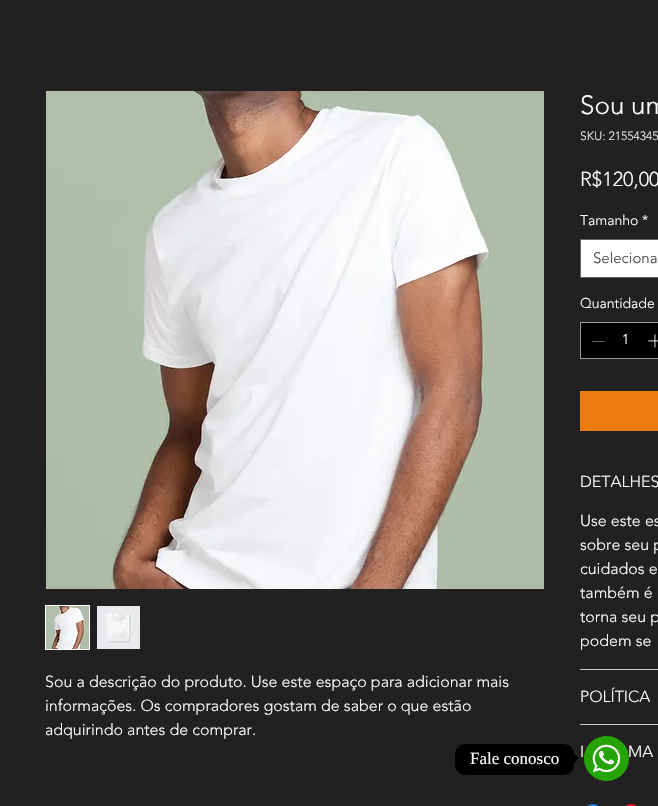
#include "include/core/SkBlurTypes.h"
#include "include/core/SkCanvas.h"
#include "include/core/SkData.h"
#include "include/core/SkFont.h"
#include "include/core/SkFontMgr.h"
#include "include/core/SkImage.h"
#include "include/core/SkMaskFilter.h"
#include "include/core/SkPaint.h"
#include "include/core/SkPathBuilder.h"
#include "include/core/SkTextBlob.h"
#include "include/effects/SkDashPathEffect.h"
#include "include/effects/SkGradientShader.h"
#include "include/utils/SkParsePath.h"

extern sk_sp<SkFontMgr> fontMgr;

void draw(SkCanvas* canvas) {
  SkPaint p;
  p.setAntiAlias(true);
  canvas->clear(SkColorSetRGB(33, 33, 33));
  canvas->drawImageRect(SkImages::DeferredFromEncodedData(SkData::MakeFromFileName("images/1.png")), SkRect::MakeLTRB(46, 91, 544, 589), SkSamplingOptions());
  p.setStyle(SkPaint::kStroke_Style);
  p.setStrokeWidth(1);
  p.setColor(SK_ColorWHITE);
  canvas->drawRect(SkRect::MakeLTRB(45.5f, 605.5f, 89.5f, 649.5f), p);
  canvas->drawImageRect(SkImages::DeferredFromEncodedData(SkData::MakeFromFileName("images/2.png")), SkRect::MakeLTRB(46, 606, 89, 649), SkSamplingOptions());
  canvas->drawImageRect(SkImages::DeferredFromEncodedData(SkData::MakeFromFileName("images/3.png")), SkRect::MakeLTRB(97, 606, 140, 649), SkSamplingOptions());
  p.setStyle(SkPaint::kFill_Style);
  canvas->drawRect(SkRect::MakeLTRB(580.5f, 239.5f, 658.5f, 277.5f), p);
  p.setStyle(SkPaint::kStroke_Style);
  p.setColor(SkColorSetRGB(102, 102, 102));
  canvas->drawRect(SkRect::MakeLTRB(580.5f, 239.5f, 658.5f, 277.5f), p);
  p.setStyle(SkPaint::kFill_Style);
  p.setColor(SK_ColorBLACK);
  canvas->drawRect(SkRect::MakeLTRB(580.5f, 322.5f, 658.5f, 358.5f), p);
  p.setStyle(SkPaint::kStroke_Style);
  p.setColor(SkColorSetRGB(153, 153, 153));
  canvas->drawRect(SkRect::MakeLTRB(580.5f, 322.5f, 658.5f, 358.5f), p);
  p.setStyle(SkPaint::kFill_Style);
  p.setColor(SkColorSetRGB(100, 100, 100));
  canvas->drawRect(SkRect::MakeLTRB(592, 341, 605, 342), p);
  canvas->drawImageRect(SkImages::DeferredFromEncodedData(SkData::MakeFromFileName("images/4.png")), SkRect::MakeLTRB(648, 334, 658, 348), SkSamplingOptions());
  p.setColor(SkColorSetRGB(235, 123, 12));
  canvas->drawRect(SkRect::MakeLTRB(580, 391, 658, 431), p);
  p.setColor(SkColorSetRGB(199, 199, 199));
  canvas->drawRect(SkRect::MakeLTRB(580, 669, 658, 670), p);
  canvas->drawRect(SkRect::MakeLTRB(580, 724, 658, 725), p);
  canvas->drawImageRect(SkImages::DeferredFromEncodedData(SkData::MakeFromFileName("images/5.png")), SkRect::MakeLTRB(587, 804, 599, 806), SkSamplingOptions());
  canvas->drawImageRect(SkImages::DeferredFromEncodedData(SkData::MakeFromFileName("images/6.png")), SkRect::MakeLTRB(625, 804, 637, 806), SkSamplingOptions());
  p.setColor(SK_ColorBLACK);
  canvas->drawRoundRect(SkRect::MakeLTRB(455, 744, 574, 775), 10, 10, p);
  canvas->drawPath(SkPathBuilder().moveTo(574, 763.5f).lineTo(574, 753.5f).lineTo(579, 758.5f).close().detach(), p);
  canvas->drawImageRect(SkImages::DeferredFromEncodedData(SkData::MakeFromFileName("images/7.png")), SkRect::MakeLTRB(584, 736, 629, 781), SkSamplingOptions());
  SkFont font1(fontMgr->matchFamilyStyle("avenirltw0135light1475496", SkFontStyle(300, SkFontStyle::kNormal_Width, SkFontStyle::kUpright_Slant)), 16);
  font1.setSubpixel(true);
  p.setColor(SK_ColorWHITE);
  canvas->drawString("Sou a descrição do produto. Use este espaço para adicionar mais", 45, 687, font1, p);
  canvas->drawString("informações. Os compradores gostam de saber o que estão", 45, 711, font1, p);
  canvas->drawString("adquirindo antes de comprar.", 45, 735, font1, p);
  SkFont font2(fontMgr->matchFamilyStyle("avenirltw0135light1475496", SkFontStyle(300, SkFontStyle::kNormal_Width, SkFontStyle::kUpright_Slant)), 26);
  font2.setSubpixel(true);
  canvas->drawString("Sou um", 580, 114, font2, p);
  SkFont font3(fontMgr->matchFamilyStyle("avenirltw0135light1475496", SkFontStyle(300, SkFontStyle::kNormal_Width, SkFontStyle::kUpright_Slant)), 12);
  font3.setSubpixel(true);
  p.setColor(SkColorSetRGB(232, 230, 230));
  canvas->drawString("SKU: 21554345", 580, 140, font3, p);
  SkFont font4(fontMgr->matchFamilyStyle("avenirltw0135light1475496", SkFontStyle(300, SkFontStyle::kNormal_Width, SkFontStyle::kUpright_Slant)), 20);
  font4.setSubpixel(true);
  p.setColor(SK_ColorWHITE);
  canvas->drawString("R$120,00", 580, 186, font4, p);
  SkFont font5(fontMgr->matchFamilyStyle("avenirltw0135light1475496", SkFontStyle(300, SkFontStyle::kNormal_Width, SkFontStyle::kUpright_Slant)), 14);
  font5.setSubpixel(true);
  canvas->drawString("Tamanho", 580, 225, font5, p);
  canvas->drawString("*", 642, 225, font5, p);
  SkFont font6(fontMgr->matchFamilyStyle("avenirltw0135light1475496", SkFontStyle(300, SkFontStyle::kNormal_Width, SkFontStyle::kUpright_Slant)), 15);
  font6.setSubpixel(true);
  p.setColor(SkColorSetRGB(68, 68, 68));
  canvas->drawString("Seleciona", 593, 263, font6, p);
  p.setColor(SK_ColorWHITE);
  canvas->drawString("Quantidade", 580, 308, font5, p);
  canvas->drawString("1", 622, 344, font5, p);
  canvas->drawString("DETALHES", 580, 487, font1, p);
  canvas->drawString("Use este es", 580, 526, font1, p);
  canvas->drawString("sobre seu p", 580, 550, font1, p);
  canvas->drawString("cuidados e", 580, 574, font1, p);
  canvas->drawString("também é", 580, 598, font1, p);
  canvas->drawString("torna seu p", 580, 622, font1, p);
  canvas->drawString("podem se", 580, 646, font1, p);
  canvas->drawString("POLÍTICA", 580, 702, font1, p);
  canvas->drawString("I", 580, 757, font1, p);
  canvas->drawString("MA", 628, 757, font1, p);
  SkFont font7(fontMgr->matchFamilyStyle("Liberation Serif", SkFontStyle::Normal()), 17);
  font7.setSubpixel(true);
  canvas->drawString("Fale conosco", 470, 764, font7, p);
}
